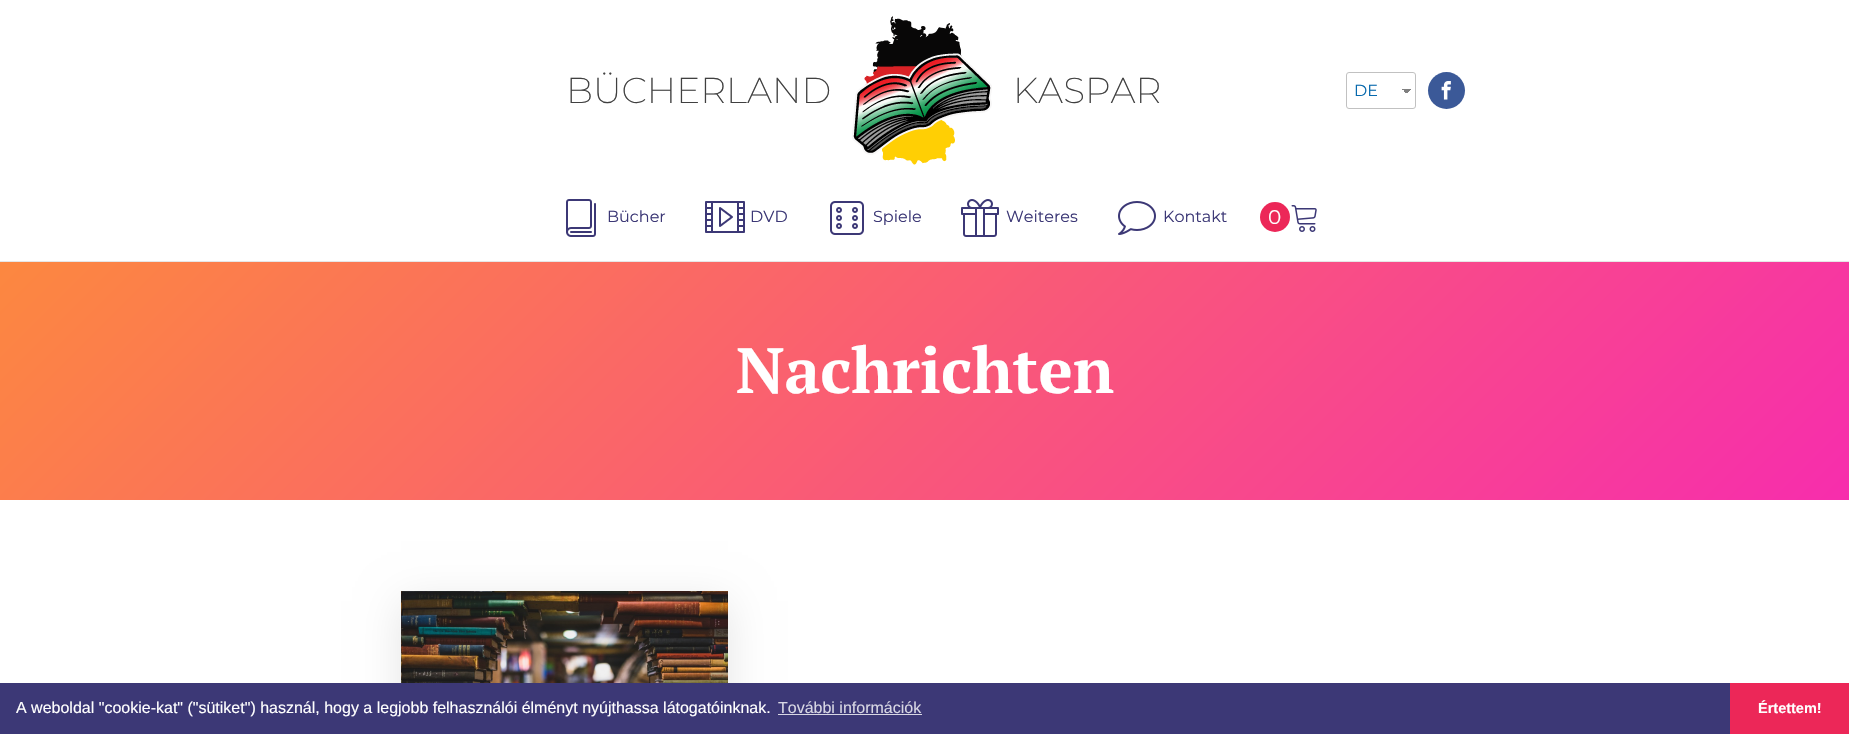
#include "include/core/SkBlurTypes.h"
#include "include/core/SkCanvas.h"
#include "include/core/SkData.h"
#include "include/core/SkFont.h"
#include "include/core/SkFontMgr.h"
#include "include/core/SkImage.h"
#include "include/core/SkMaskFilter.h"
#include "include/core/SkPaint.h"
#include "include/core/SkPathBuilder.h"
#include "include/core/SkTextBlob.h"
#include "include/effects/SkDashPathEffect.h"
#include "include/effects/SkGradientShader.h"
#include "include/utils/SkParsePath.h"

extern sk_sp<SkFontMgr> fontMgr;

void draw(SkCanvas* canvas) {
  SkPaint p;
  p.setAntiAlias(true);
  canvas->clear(SK_ColorWHITE);
  p.setColor(SkColorSetRGB(230, 230, 230));
  canvas->drawRect(SkRect::MakeLTRB(0, 261, 1849, 262), p);
  canvas->drawImageRect(SkImages::DeferredFromEncodedData(SkData::MakeFromFileName("images/1.png")), SkRect::MakeLTRB(852, 16, 992, 165), SkSamplingOptions());
  {
    const SkColor colors[] = {SkColorSetRGB(128, 128, 128), SK_ColorWHITE};
    const float stops[] = {0.5f, 0.5f};
    const SkPoint ends[] = {{1407, 89}, {1412, 94}};
    p.setShader(SkGradientShader::MakeLinear(ends, colors, stops, 2, SkTileMode::kClamp));
    p.setAlpha(255);
  }
  canvas->drawRect(SkRect::MakeLTRB(1407, 89, 1412, 93), p);
  {
    const SkColor colors[] = {SK_ColorWHITE, SkColorSetRGB(128, 128, 128)};
    const float stops[] = {0.5f, 0.5f};
    const SkPoint ends[] = {{1402, 94}, {1407, 89}};
    p.setShader(SkGradientShader::MakeLinear(ends, colors, stops, 2, SkTileMode::kClamp));
    p.setAlpha(255);
  }
  canvas->drawRect(SkRect::MakeLTRB(1402, 89, 1407, 93), p);
  p.setStyle(SkPaint::kStroke_Style);
  p.setStrokeWidth(1);
  p.setShader(nullptr);
  p.setColor(SkColorSetRGB(193, 193, 193));
  canvas->drawRoundRect(SkRect::MakeLTRB(1346.5f, 72.5f, 1415.5f, 108.5f), 2.5f, 2.5f, p);
  p.setStyle(SkPaint::kFill_Style);
  p.setColor(SkColorSetRGB(59, 89, 152));
  canvas->drawCircle(1446.5f, 90.5f, 18.5f, p);
  canvas->drawImageRect(SkImages::DeferredFromEncodedData(SkData::MakeFromFileName("images/2.png")), SkRect::MakeLTRB(1441, 81, 1451, 100), SkSamplingOptions());
  canvas->drawImageRect(SkImages::DeferredFromEncodedData(SkData::MakeFromFileName("images/3.png")), SkRect::MakeLTRB(566, 199, 596, 237), SkSamplingOptions());
  canvas->drawImageRect(SkImages::DeferredFromEncodedData(SkData::MakeFromFileName("images/4.png")), SkRect::MakeLTRB(705, 201, 745, 233), SkSamplingOptions());
  canvas->drawImageRect(SkImages::DeferredFromEncodedData(SkData::MakeFromFileName("images/5.png")), SkRect::MakeLTRB(830, 201, 864, 235), SkSamplingOptions());
  canvas->drawImageRect(SkImages::DeferredFromEncodedData(SkData::MakeFromFileName("images/6.png")), SkRect::MakeLTRB(961, 199, 999, 237), SkSamplingOptions());
  canvas->drawImageRect(SkImages::DeferredFromEncodedData(SkData::MakeFromFileName("images/7.png")), SkRect::MakeLTRB(1118, 201, 1156, 235), SkSamplingOptions());
  p.setColor(SkColorSetRGB(236, 39, 88));
  canvas->drawCircle(1275, 217, 15, p);
  canvas->drawImageRect(SkImages::DeferredFromEncodedData(SkData::MakeFromFileName("images/8.png")), SkRect::MakeLTRB(1291, 205, 1317, 232), SkSamplingOptions());
  {
    const SkColor colors[] = {SkColorSetRGB(253, 147, 50), SkColorSetRGB(246, 35, 185)};
    const float stops[] = {0, 1};
    const SkPoint ends[] = {{279, -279}, {1570, 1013}};
    p.setShader(SkGradientShader::MakeLinear(ends, colors, stops, 2, SkTileMode::kClamp));
    p.setAlpha(255);
  }
  canvas->drawRect(SkRect::MakeLTRB(0, 262, 1849, 500), p);
  p.setShader(nullptr);
  p.setColor(SkColorSetARGB(26, 0, 0, 0));
  p.setMaskFilter(SkMaskFilter::MakeBlur(kNormal_SkBlurStyle, 20));
  canvas->drawRect(SkRect::MakeLTRB(401, 601, 728, 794), p);
  p.setMaskFilter(nullptr);
  canvas->drawImageRect(SkImages::DeferredFromEncodedData(SkData::MakeFromFileName("images/9.png")), SkRect::MakeLTRB(401, 591, 728, 683), SkSamplingOptions());
  p.setColor(SkColorSetRGB(60, 56, 118));
  canvas->drawRect(SkRect::MakeLTRB(0, 683, 1730, 734), p);
  p.setColor(SkColorSetRGB(216, 215, 228));
  canvas->drawRect(SkRect::MakeLTRB(778, 714, 922, 715), p);
  p.setColor(SkColorSetRGB(236, 39, 88));
  canvas->drawRect(SkRect::MakeLTRB(1730, 683, 1849, 734), p);
  SkFont font1(fontMgr->matchFamilyStyle("Montserrat", SkFontStyle(200, SkFontStyle::kNormal_Width, SkFontStyle::kUpright_Slant)), 36);
  font1.setSubpixel(true);
  p.setColor(SkColorSetRGB(64, 64, 64));
  canvas->drawString("BÜCHERLAND", 566, 103, font1, p);
  canvas->drawString("KASPAR", 1013, 103, font1, p);
  SkFont font2(fontMgr->matchFamilyStyle("Montserrat", SkFontStyle::Normal()), 16);
  font2.setSubpixel(true);
  p.setColor(SkColorSetRGB(7, 105, 173));
  canvas->drawString("DE", 1354, 96, font2, p);
  p.setColor(SkColorSetRGB(60, 56, 118));
  canvas->drawString("Bücher", 607, 222, font2, p);
  canvas->drawString("DVD", 750, 222, font2, p);
  canvas->drawString("Spiele", 873, 222, font2, p);
  canvas->drawString("Weiteres", 1006, 222, font2, p);
  canvas->drawString("Kontakt", 1163, 222, font2, p);
  SkFont font3(fontMgr->matchFamilyStyle("Montserrat", SkFontStyle::Normal()), 20);
  font3.setSubpixel(true);
  p.setColor(SK_ColorWHITE);
  canvas->drawString("0", 1268, 224, font3, p);
  SkFont font4(fontMgr->matchFamilyStyle("PT Serif", SkFontStyle::Bold()), 64);
  font4.setSubpixel(true);
  canvas->drawString("Nachrichten", 736, 393, font4, p);
  SkFont font5(fontMgr->matchFamilyStyle("Liberation Sans", SkFontStyle::Normal()), 16);
  font5.setSubpixel(true);
  canvas->drawString("A weboldal \"cookie-kat\" (\"sütiket\") használ, hogy a legjobb felhasználói élményt nyújthassa látogatóinknak.", 16, 713, font5, p);
  p.setColor(SkColorSetRGB(216, 215, 228));
  canvas->drawString("További információk", 778, 713, font5, p);
  SkFont font6(fontMgr->matchFamilyStyle("Liberation Sans", SkFontStyle::Bold()), 14.5f);
  font6.setSubpixel(true);
  p.setColor(SK_ColorWHITE);
  canvas->drawString("Értettem!", 1758, 713, font6, p);
}
